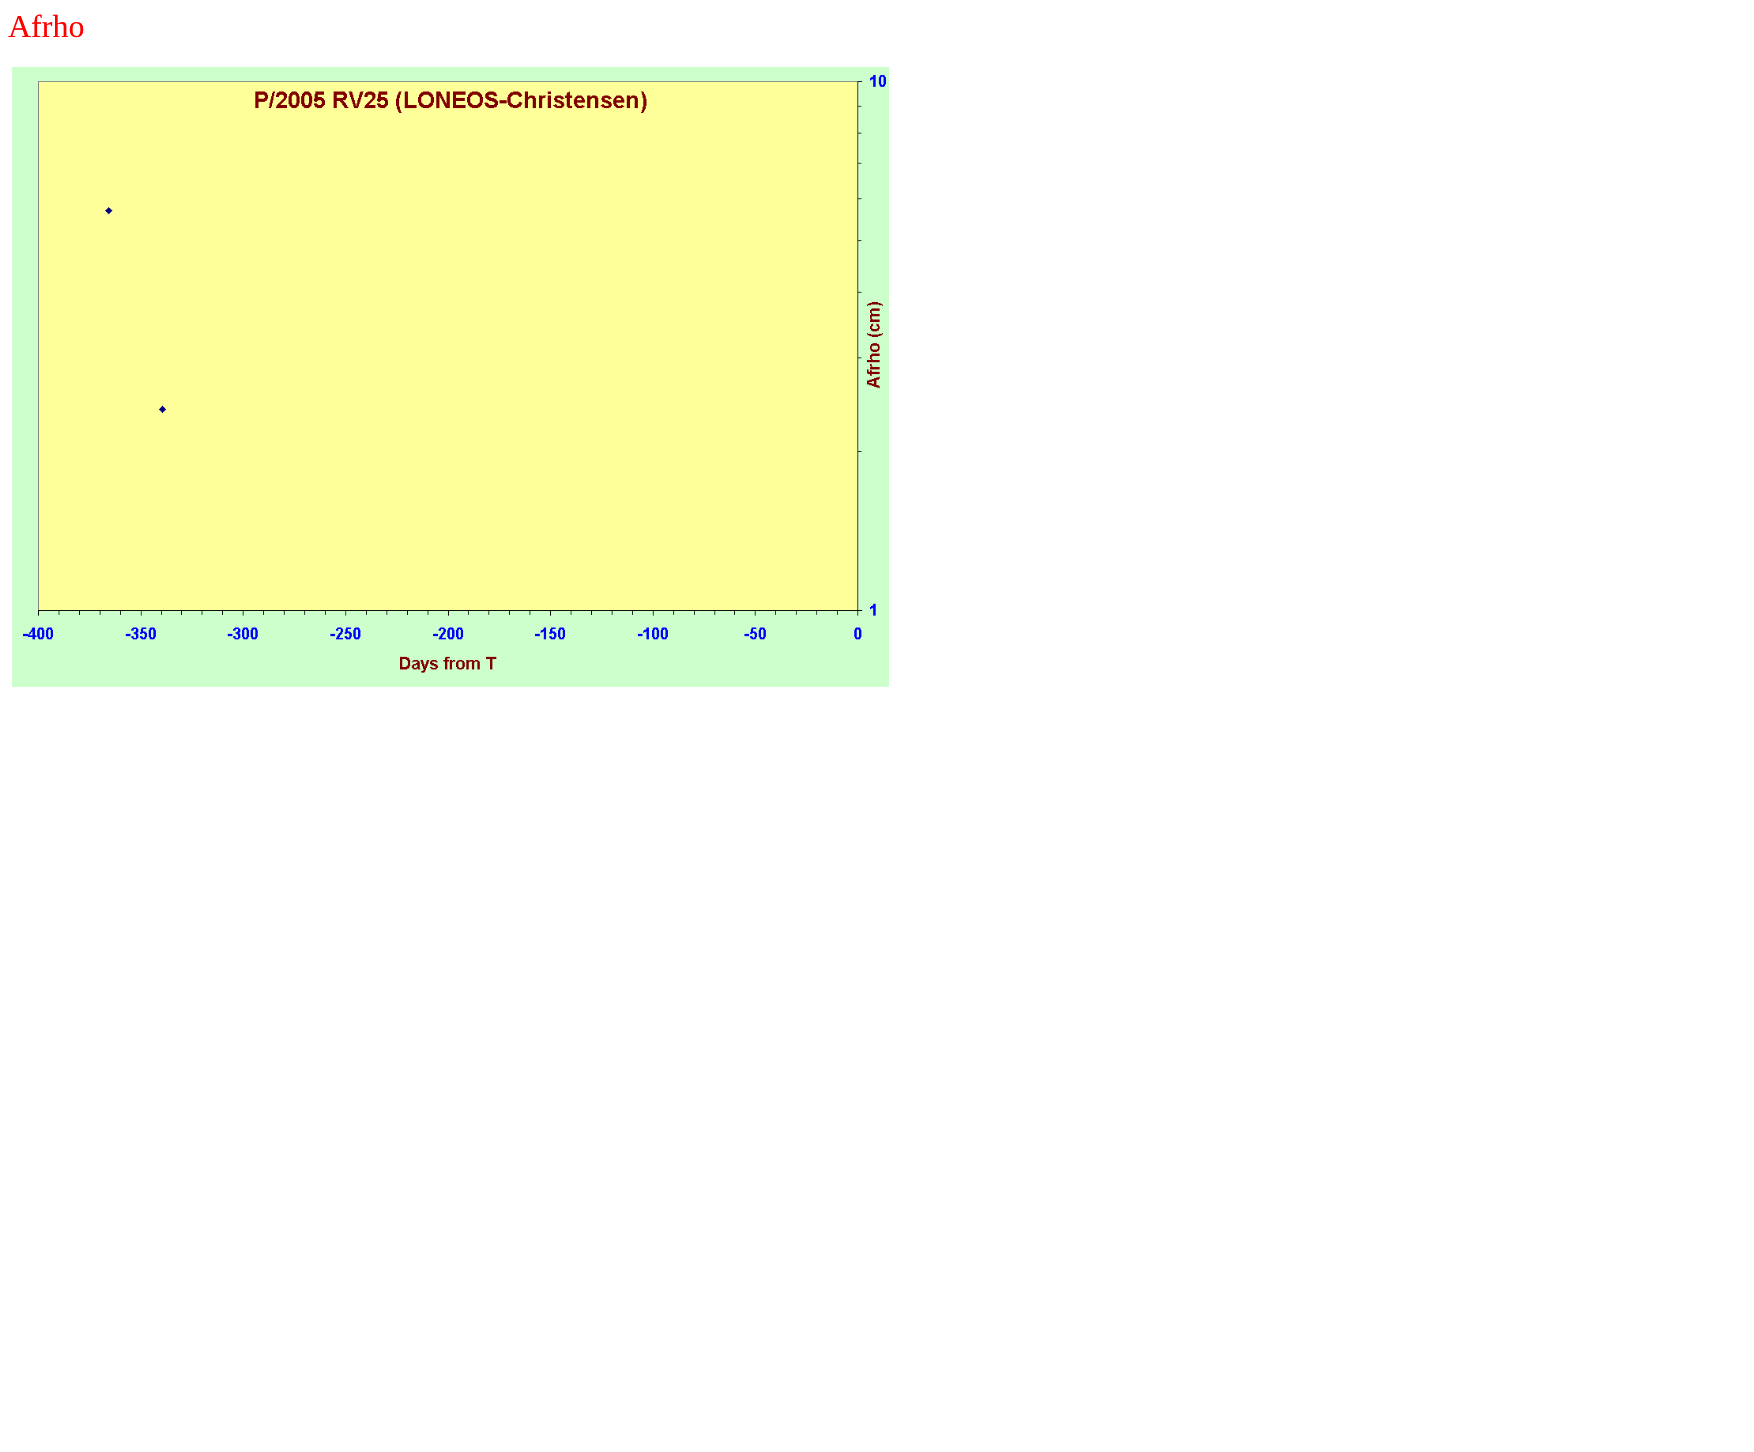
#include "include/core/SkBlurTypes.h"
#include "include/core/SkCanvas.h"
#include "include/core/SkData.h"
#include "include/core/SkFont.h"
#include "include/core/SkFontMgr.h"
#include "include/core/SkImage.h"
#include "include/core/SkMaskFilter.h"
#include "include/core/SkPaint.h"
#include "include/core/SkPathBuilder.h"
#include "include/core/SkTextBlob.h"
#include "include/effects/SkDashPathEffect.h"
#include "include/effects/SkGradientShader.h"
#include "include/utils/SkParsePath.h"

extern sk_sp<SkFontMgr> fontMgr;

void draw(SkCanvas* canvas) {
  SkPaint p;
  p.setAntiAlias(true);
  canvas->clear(SK_ColorWHITE);
  canvas->drawImageRect(SkImages::DeferredFromEncodedData(SkData::MakeFromFileName("images/1.png")), SkRect::MakeLTRB(12, 67, 889, 687), SkSamplingOptions());
  SkFont font1(fontMgr->matchFamilyStyle("Liberation Serif", SkFontStyle::Normal()), 32);
  font1.setSubpixel(true);
  p.setColor(SkColorSetRGB(255, 0, 0));
  canvas->drawString("Afrho", 8, 37, font1, p);
}
